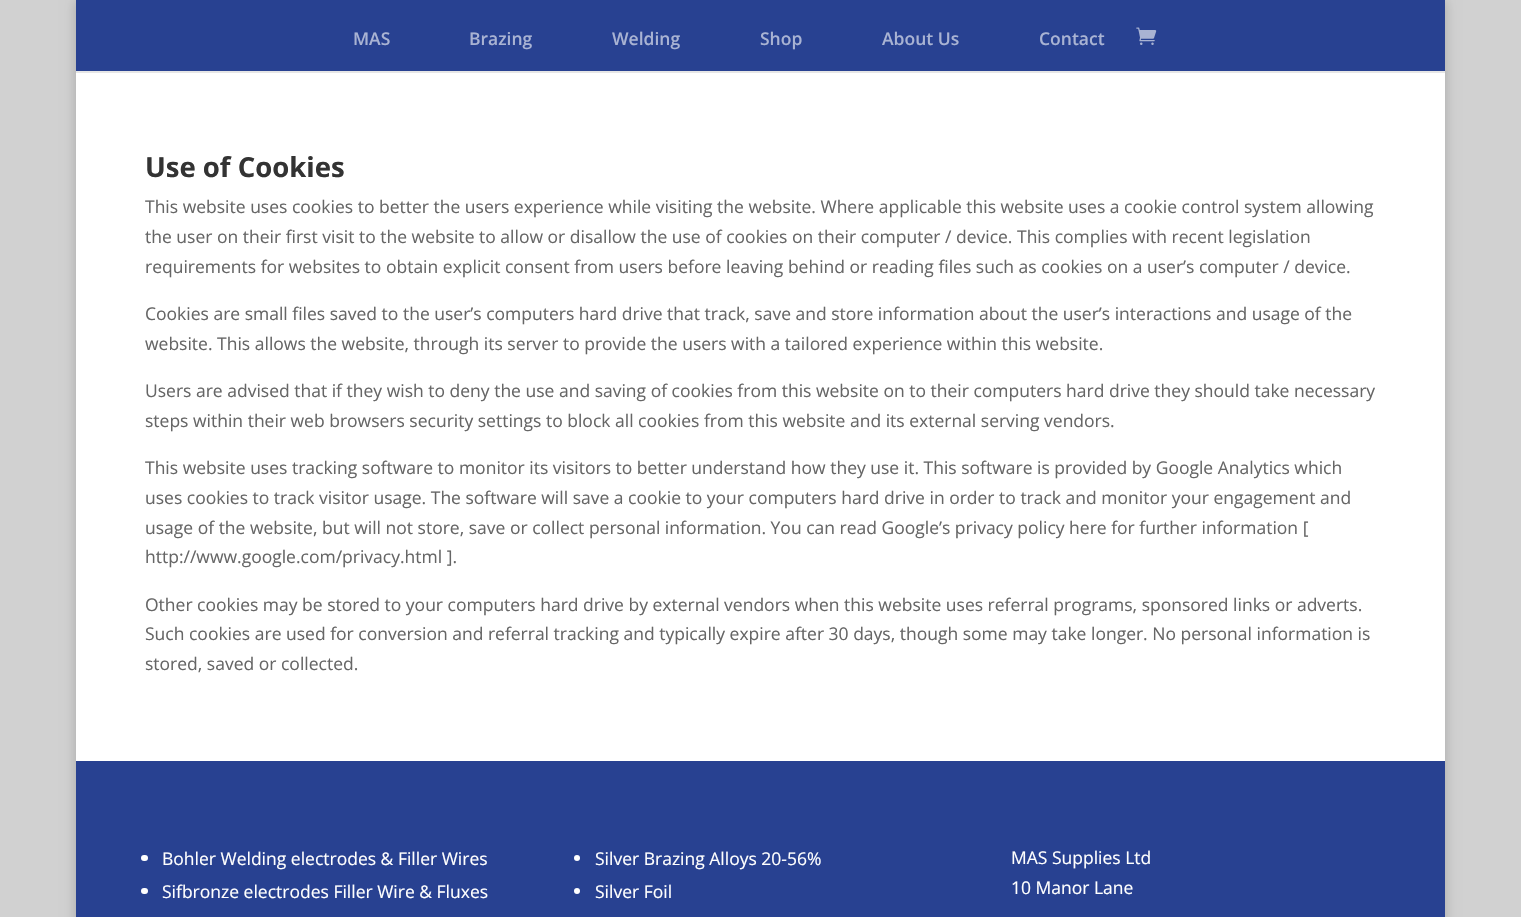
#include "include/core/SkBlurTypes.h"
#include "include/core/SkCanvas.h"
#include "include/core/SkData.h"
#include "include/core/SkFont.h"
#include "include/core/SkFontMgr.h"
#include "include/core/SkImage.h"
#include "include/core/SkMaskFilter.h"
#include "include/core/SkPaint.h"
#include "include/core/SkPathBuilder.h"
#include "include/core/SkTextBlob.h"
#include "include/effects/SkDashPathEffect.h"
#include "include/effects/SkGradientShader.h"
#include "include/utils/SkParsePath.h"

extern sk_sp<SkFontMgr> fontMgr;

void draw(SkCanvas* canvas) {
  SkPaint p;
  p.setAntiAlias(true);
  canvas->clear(SkColorSetRGB(209, 209, 209));
  p.setColor(SkColorSetARGB(51, 0, 0, 0));
  p.setMaskFilter(SkMaskFilter::MakeBlur(kNormal_SkBlurStyle, 6));
  canvas->drawRect(SkRect::MakeLTRB(76, 0, 1445, 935), p);
  p.setMaskFilter(nullptr);
  p.setColor(SkColorSetRGB(230, 230, 230));
  canvas->drawPath(SkPathBuilder().moveTo(76, 1).lineTo(76, 73).lineTo(1445, 73).lineTo(1445, 71).lineTo(76, 71).close().detach(), p);
  p.setColor(SkColorSetRGB(40, 65, 145));
  canvas->drawRect(SkRect::MakeLTRB(76, 0, 1445, 71), p);
  canvas->drawImageRect(SkImages::DeferredFromEncodedData(SkData::MakeFromFileName("images/1.png")), SkRect::MakeLTRB(1136, 27, 1157, 45), SkSamplingOptions());
  p.setColor(SK_ColorWHITE);
  canvas->drawRect(SkRect::MakeLTRB(76, 73, 1445, 761), p);
  p.setColor(SkColorSetRGB(40, 65, 145));
  canvas->drawRect(SkRect::MakeLTRB(76, 761, 1445, 917), p);
  p.setColor(SK_ColorWHITE);
  canvas->drawRoundRect(SkRect::MakeLTRB(141, 855, 148, 861), 3, 3, p);
  canvas->drawRoundRect(SkRect::MakeLTRB(141, 888, 148, 894), 3, 3, p);
  canvas->drawCircle(577, 858, 3, p);
  canvas->drawCircle(577, 891, 3, p);
  SkFont font1(fontMgr->matchFamilyStyle("Open Sans", SkFontStyle(600, SkFontStyle::kNormal_Width, SkFontStyle::kUpright_Slant)), 17.5f);
  font1.setSubpixel(true);
  p.setColor(SkColorSetRGB(169, 179, 211));
  canvas->drawString("MAS", 353, 45, font1, p);
  canvas->drawString("Brazing", 469, 45, font1, p);
  canvas->drawString("Welding", 612, 45, font1, p);
  canvas->drawString("Shop", 760, 45, font1, p);
  canvas->drawString("About Us", 882, 45, font1, p);
  canvas->drawString("Contact", 1039, 45, font1, p);
  SkFont font2(fontMgr->matchFamilyStyle("Open Sans", SkFontStyle::Bold()), 27.5f);
  font2.setSubpixel(true);
  p.setColor(SkColorSetRGB(51, 51, 51));
  canvas->drawString("Use of Cookies", 145, 177, font2, p);
  SkFont font3(fontMgr->matchFamilyStyle("Open Sans", SkFontStyle::Normal()), 17.5f);
  font3.setSubpixel(true);
  p.setColor(SkColorSetRGB(102, 102, 102));
  canvas->drawString("This website uses cookies to better the users experience while visiting the website. Where applicable this website uses a cookie control system allowing", 145, 213, font3, p);
  canvas->drawString("the user on their first visit to the website to allow or disallow the use of cookies on their computer / device. This complies with recent legislation", 145, 243, font3, p);
  canvas->drawString("requirements for websites to obtain explicit consent from users before leaving behind or reading files such as cookies on a user’s computer / device.", 145, 273, font3, p);
  canvas->drawString("Cookies are small files saved to the user’s computers hard drive that track, save and store information about the user’s interactions and usage of the", 145, 320, font3, p);
  canvas->drawString("website. This allows the website, through its server to provide the users with a tailored experience within this website.", 145, 350, font3, p);
  canvas->drawString("Users are advised that if they wish to deny the use and saving of cookies from this website on to their computers hard drive they should take necessary", 145, 397, font3, p);
  canvas->drawString("steps within their web browsers security settings to block all cookies from this website and its external serving vendors.", 145, 427, font3, p);
  canvas->drawString("This website uses tracking software to monitor its visitors to better understand how they use it. This software is provided by Google Analytics which", 145, 474, font3, p);
  canvas->drawString("uses cookies to track visitor usage. The software will save a cookie to your computers hard drive in order to track and monitor your engagement and", 145, 504, font3, p);
  canvas->drawString("usage of the website, but will not store, save or collect personal information. You can read Google’s privacy policy here for further information [", 145, 534, font3, p);
  canvas->drawString("http://www.google.com/privacy.html ].", 145, 563, font3, p);
  canvas->drawString("Other cookies may be stored to your computers hard drive by external vendors when this website uses referral programs, sponsored links or adverts.", 145, 611, font3, p);
  canvas->drawString("Such cookies are used for conversion and referral tracking and typically expire after 30 days, though some may take longer. No personal information is", 145, 640, font3, p);
  canvas->drawString("stored, saved or collected.", 145, 670, font3, p);
  p.setColor(SK_ColorWHITE);
  canvas->drawString("Bohler Welding electrodes & Filler Wires", 162, 865, font3, p);
  canvas->drawString("Sifbronze electrodes Filler Wire & Fluxes", 162, 898, font3, p);
  canvas->drawString("Silver Brazing Alloys 20-56%", 595, 865, font3, p);
  canvas->drawString("Silver Foil", 595, 898, font3, p);
  canvas->drawString("MAS Supplies Ltd", 1011, 864, font3, p);
  canvas->drawString("10 Manor Lane", 1011, 894, font3, p);
}
